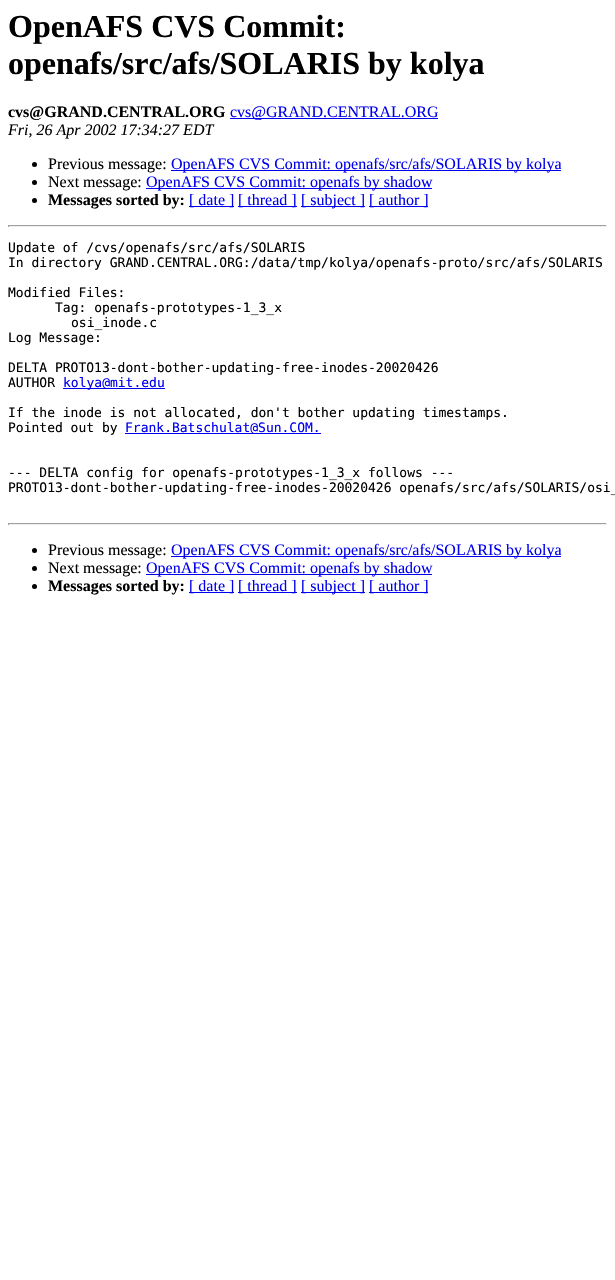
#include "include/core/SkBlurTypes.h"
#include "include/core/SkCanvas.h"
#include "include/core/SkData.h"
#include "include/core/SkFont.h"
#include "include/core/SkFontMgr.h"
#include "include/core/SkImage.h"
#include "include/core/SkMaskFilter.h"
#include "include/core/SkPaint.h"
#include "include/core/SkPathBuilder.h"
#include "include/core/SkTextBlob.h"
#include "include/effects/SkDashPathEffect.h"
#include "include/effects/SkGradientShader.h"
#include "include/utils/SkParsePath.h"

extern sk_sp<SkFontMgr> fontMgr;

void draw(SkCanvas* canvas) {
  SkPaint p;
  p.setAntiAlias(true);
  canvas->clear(SK_ColorWHITE);
  p.setColor(SkColorSetRGB(0, 0, 238));
  canvas->drawRect(SkRect::MakeLTRB(230, 118, 438, 119), p);
  p.setColor(SK_ColorBLACK);
  canvas->drawCircle(34.5f, 164.5f, 2.5f, p);
  p.setColor(SkColorSetRGB(0, 0, 238));
  canvas->drawRect(SkRect::MakeLTRB(171, 170, 561, 171), p);
  p.setColor(SK_ColorBLACK);
  canvas->drawCircle(34.5f, 182.5f, 2.5f, p);
  p.setColor(SkColorSetRGB(0, 0, 238));
  canvas->drawRect(SkRect::MakeLTRB(146, 188, 432, 189), p);
  p.setColor(SK_ColorBLACK);
  canvas->drawCircle(34.5f, 200.5f, 2.5f, p);
  p.setColor(SkColorSetRGB(0, 0, 238));
  canvas->drawRect(SkRect::MakeLTRB(189, 206, 234, 207), p);
  canvas->drawRect(SkRect::MakeLTRB(238, 206, 297, 207), p);
  canvas->drawRect(SkRect::MakeLTRB(301, 206, 365, 207), p);
  canvas->drawRect(SkRect::MakeLTRB(369, 206, 428, 207), p);
  p.setColor(SkColorSetRGB(159, 159, 159));
  canvas->drawRect(SkRect::MakeLTRB(8, 225, 607, 226), p);
  p.setColor(SkColorSetRGB(238, 238, 238));
  canvas->drawRect(SkRect::MakeLTRB(606, 225, 607, 227), p);
  canvas->drawRect(SkRect::MakeLTRB(8, 226, 607, 227), p);
  p.setColor(SkColorSetRGB(159, 159, 159));
  canvas->drawRect(SkRect::MakeLTRB(8, 225, 9, 227), p);
  p.setColor(SkColorSetRGB(0, 0, 238));
  canvas->drawRect(SkRect::MakeLTRB(63, 388, 165, 389), p);
  canvas->drawRect(SkRect::MakeLTRB(125, 433, 321, 434), p);
  p.setColor(SkColorSetRGB(159, 159, 159));
  canvas->drawRect(SkRect::MakeLTRB(8, 523, 607, 524), p);
  p.setColor(SkColorSetRGB(238, 238, 238));
  canvas->drawRect(SkRect::MakeLTRB(606, 523, 607, 525), p);
  canvas->drawRect(SkRect::MakeLTRB(8, 524, 607, 525), p);
  p.setColor(SkColorSetRGB(159, 159, 159));
  canvas->drawRect(SkRect::MakeLTRB(8, 523, 9, 525), p);
  p.setColor(SK_ColorBLACK);
  canvas->drawCircle(34.5f, 550.5f, 2.5f, p);
  p.setColor(SkColorSetRGB(0, 0, 238));
  canvas->drawRect(SkRect::MakeLTRB(171, 556, 561, 557), p);
  p.setColor(SK_ColorBLACK);
  canvas->drawCircle(34.5f, 568.5f, 2.5f, p);
  p.setColor(SkColorSetRGB(0, 0, 238));
  canvas->drawRect(SkRect::MakeLTRB(146, 574, 432, 575), p);
  p.setColor(SK_ColorBLACK);
  canvas->drawCircle(34.5f, 586.5f, 2.5f, p);
  p.setColor(SkColorSetRGB(0, 0, 238));
  canvas->drawRect(SkRect::MakeLTRB(189, 592, 234, 593), p);
  canvas->drawRect(SkRect::MakeLTRB(238, 592, 297, 593), p);
  canvas->drawRect(SkRect::MakeLTRB(301, 592, 365, 593), p);
  canvas->drawRect(SkRect::MakeLTRB(369, 592, 428, 593), p);
  SkFont font1(fontMgr->matchFamilyStyle("Liberation Serif", SkFontStyle::Bold()), 32);
  font1.setSubpixel(true);
  p.setColor(SK_ColorBLACK);
  canvas->drawString("OpenAFS CVS Commit:", 8, 37, font1, p);
  canvas->drawString("openafs/src/afs/SOLARIS by kolya", 8, 74, font1, p);
  SkFont font2(fontMgr->matchFamilyStyle("Liberation Serif", SkFontStyle::Bold()), 16);
  font2.setSubpixel(true);
  canvas->drawString("cvs@GRAND.CENTRAL.ORG", 8, 117, font2, p);
  SkFont font3(fontMgr->matchFamilyStyle("Liberation Serif", SkFontStyle::Normal()), 16);
  font3.setSubpixel(true);
  p.setColor(SkColorSetRGB(0, 0, 238));
  canvas->drawString("cvs@GRAND.CENTRAL.ORG", 230, 117, font3, p);
  SkFont font4(fontMgr->matchFamilyStyle("Liberation Serif", SkFontStyle::Italic()), 16);
  font4.setSubpixel(true);
  p.setColor(SK_ColorBLACK);
  canvas->drawString("Fri, 26 Apr 2002 17:34:27 EDT", 8, 135, font4, p);
  canvas->drawString("Previous message:", 48, 169, font3, p);
  p.setColor(SkColorSetRGB(0, 0, 238));
  canvas->drawString("OpenAFS CVS Commit: openafs/src/afs/SOLARIS by kolya", 171, 169, font3, p);
  p.setColor(SK_ColorBLACK);
  canvas->drawString("Next message:", 48, 187, font3, p);
  p.setColor(SkColorSetRGB(0, 0, 238));
  canvas->drawString("OpenAFS CVS Commit: openafs by shadow", 146, 187, font3, p);
  p.setColor(SK_ColorBLACK);
  canvas->drawString("Messages sorted by:", 48, 205, font2, p);
  p.setColor(SkColorSetRGB(0, 0, 238));
  canvas->drawString("[ date ]", 189, 205, font3, p);
  canvas->drawString("[ thread ]", 238, 205, font3, p);
  canvas->drawString("[ subject ]", 301, 205, font3, p);
  canvas->drawString("[ author ]", 369, 205, font3, p);
  SkFont font5(fontMgr->matchFamilyStyle("DejaVu Sans Mono", SkFontStyle::Normal()), 13);
  font5.setSubpixel(true);
  p.setColor(SK_ColorBLACK);
  canvas->drawString("Update of /cvs/openafs/src/afs/SOLARIS", 8, 252, font5, p);
  canvas->drawString("In directory GRAND.CENTRAL.ORG:/data/tmp/kolya/openafs-proto/src/afs/SOLARIS", 8, 267, font5, p);
  canvas->drawString("Modified Files:", 8, 297, font5, p);
  canvas->drawString("Tag: openafs-prototypes-1_3_x", 55, 312, font5, p);
  canvas->drawString("osi_inode.c", 71, 327, font5, p);
  canvas->drawString("Log Message:", 8, 342, font5, p);
  canvas->drawString("DELTA PROTO13-dont-bother-updating-free-inodes-20020426", 8, 372, font5, p);
  canvas->drawString("AUTHOR", 8, 387, font5, p);
  p.setColor(SkColorSetRGB(0, 0, 238));
  canvas->drawString("kolya@mit.edu", 63, 387, font5, p);
  p.setColor(SK_ColorBLACK);
  canvas->drawString("If the inode is not allocated, don't bother updating timestamps.", 8, 417, font5, p);
  canvas->drawString("Pointed out by", 8, 432, font5, p);
  p.setColor(SkColorSetRGB(0, 0, 238));
  canvas->drawString("Frank.Batschulat@Sun.COM.", 125, 432, font5, p);
  p.setColor(SK_ColorBLACK);
  canvas->drawString("--- DELTA config for openafs-prototypes-1_3_x follows ---", 8, 477, font5, p);
  canvas->drawString("PROTO13-dont-bother-updating-free-inodes-20020426 openafs/src/afs/SOLARIS/osi_", 8, 492, font5, p);
  canvas->drawString("Previous message:", 48, 555, font3, p);
  p.setColor(SkColorSetRGB(0, 0, 238));
  canvas->drawString("OpenAFS CVS Commit: openafs/src/afs/SOLARIS by kolya", 171, 555, font3, p);
  p.setColor(SK_ColorBLACK);
  canvas->drawString("Next message:", 48, 573, font3, p);
  p.setColor(SkColorSetRGB(0, 0, 238));
  canvas->drawString("OpenAFS CVS Commit: openafs by shadow", 146, 573, font3, p);
  p.setColor(SK_ColorBLACK);
  canvas->drawString("Messages sorted by:", 48, 591, font2, p);
  p.setColor(SkColorSetRGB(0, 0, 238));
  canvas->drawString("[ date ]", 189, 591, font3, p);
  canvas->drawString("[ thread ]", 238, 591, font3, p);
  canvas->drawString("[ subject ]", 301, 591, font3, p);
  canvas->drawString("[ author ]", 369, 591, font3, p);
}
